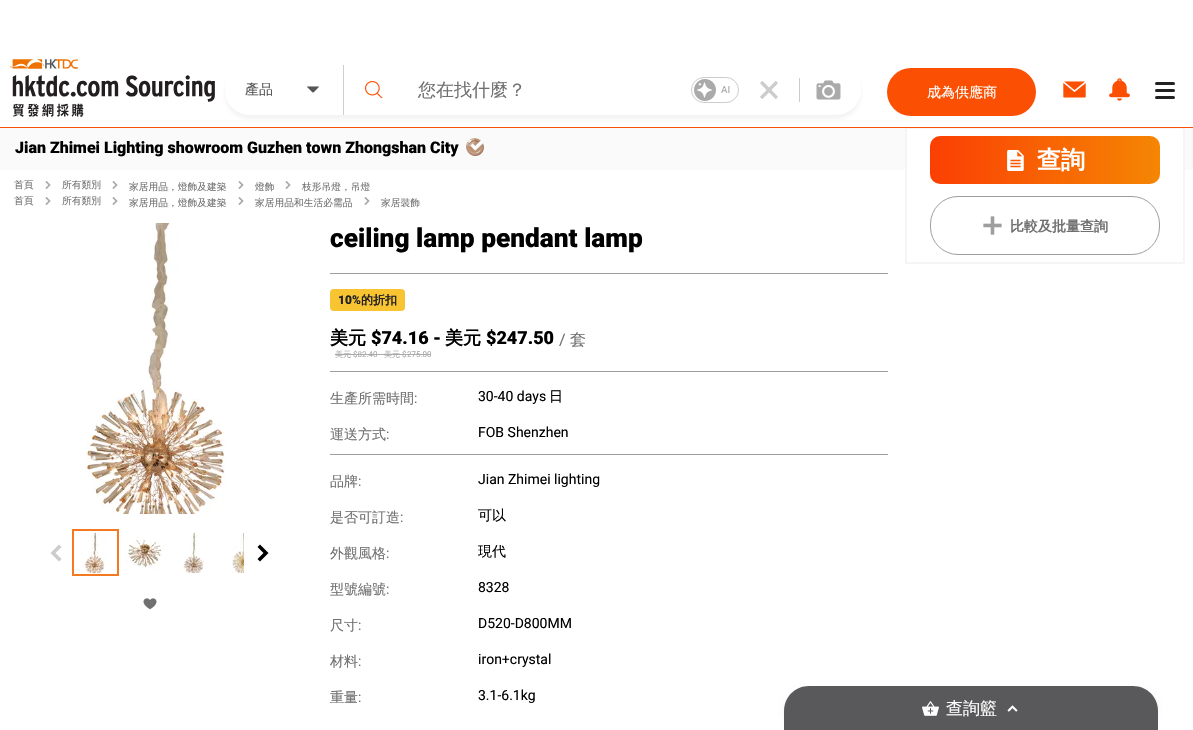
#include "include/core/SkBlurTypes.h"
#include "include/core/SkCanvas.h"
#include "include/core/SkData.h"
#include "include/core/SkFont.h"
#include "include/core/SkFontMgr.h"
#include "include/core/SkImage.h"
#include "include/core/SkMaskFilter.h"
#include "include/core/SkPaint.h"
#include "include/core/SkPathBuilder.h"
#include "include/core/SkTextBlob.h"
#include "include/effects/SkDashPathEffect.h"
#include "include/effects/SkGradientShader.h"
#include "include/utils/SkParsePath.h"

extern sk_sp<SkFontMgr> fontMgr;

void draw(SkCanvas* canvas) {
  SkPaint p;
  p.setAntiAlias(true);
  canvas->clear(SK_ColorWHITE);
  p.setColor(SkColorSetRGB(250, 250, 250));
  canvas->drawRect(SkRect::MakeLTRB(0, 128, 1193, 170), p);
  p.setColor(SK_ColorWHITE);
  canvas->drawRect(SkRect::MakeLTRB(907, 129, 1183, 170), p);
  p.setStyle(SkPaint::kStroke_Style);
  p.setStrokeWidth(2);
  p.setColor(SkColorSetRGB(245, 245, 245));
  canvas->drawRect(SkRect::MakeLTRB(906, 128, 1184, 263), p);
  p.setStyle(SkPaint::kFill_Style);
  p.setColor(SkColorSetRGB(251, 80, 4));
  canvas->drawRect(SkRect::MakeLTRB(0, 127, 1193, 128), p);
  canvas->drawImageRect(SkImages::DeferredFromEncodedData(SkData::MakeFromFileName("images/1.png")), SkRect::MakeLTRB(10, 59, 215, 117), SkSamplingOptions());
  canvas->save();
  canvas->clipPath(SkPathBuilder(SkPathFillType::kEvenOdd).moveTo(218, 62).lineTo(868, 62).lineTo(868, 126).lineTo(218, 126).close().moveTo(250, 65).lineTo(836, 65).cubicTo(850, 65, 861, 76, 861, 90).cubicTo(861, 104, 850, 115, 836, 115).lineTo(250, 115).cubicTo(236, 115, 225, 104, 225, 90).cubicTo(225, 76, 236, 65, 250, 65).close().detach(), true);
  p.setColor(SkColorSetARGB(26, 127, 127, 127));
  p.setMaskFilter(SkMaskFilter::MakeBlur(kNormal_SkBlurStyle, 2));
  canvas->drawRoundRect(SkRect::MakeLTRB(225, 69, 861, 119), 25, 25, p);
  p.setMaskFilter(nullptr);
  canvas->restore();
  p.setColor(SkColorSetRGB(207, 207, 207));
  canvas->drawRect(SkRect::MakeLTRB(343, 65, 344, 115), p);
  canvas->drawImageRect(SkImages::DeferredFromEncodedData(SkData::MakeFromFileName("images/2.png")), SkRect::MakeLTRB(307, 86, 319, 93), SkSamplingOptions());
  canvas->drawImageRect(SkImages::DeferredFromEncodedData(SkData::MakeFromFileName("images/3.png")), SkRect::MakeLTRB(365, 81, 383, 98), SkSamplingOptions());
  p.setStyle(SkPaint::kStroke_Style);
  p.setStrokeWidth(1);
  p.setColor(SkColorSetRGB(204, 204, 204));
  canvas->drawRoundRect(SkRect::MakeLTRB(691.5f, 77.5f, 738.5f, 102.5f), 12.5f, 12.5f, p);
  canvas->drawImageRect(SkImages::DeferredFromEncodedData(SkData::MakeFromFileName("images/4.png")), SkRect::MakeLTRB(694, 79, 716, 101), SkSamplingOptions());
  canvas->drawImageRect(SkImages::DeferredFromEncodedData(SkData::MakeFromFileName("images/5.png")), SkRect::MakeLTRB(760, 81, 778, 99), SkSamplingOptions());
  p.setStyle(SkPaint::kFill_Style);
  canvas->drawRect(SkRect::MakeLTRB(799, 78, 800, 102), p);
  canvas->drawImageRect(SkImages::DeferredFromEncodedData(SkData::MakeFromFileName("images/6.png")), SkRect::MakeLTRB(816, 80, 841, 100), SkSamplingOptions());
  p.setColor(SkColorSetRGB(251, 80, 4));
  canvas->drawRoundRect(SkRect::MakeLTRB(887, 68, 1036, 116), 24, 24, p);
  canvas->drawImageRect(SkImages::DeferredFromEncodedData(SkData::MakeFromFileName("images/7.png")), SkRect::MakeLTRB(1063, 81, 1086, 98), SkSamplingOptions());
  canvas->drawImageRect(SkImages::DeferredFromEncodedData(SkData::MakeFromFileName("images/8.png")), SkRect::MakeLTRB(1109, 78, 1130, 101), SkSamplingOptions());
  p.setColor(SkColorSetRGB(34, 34, 34));
  canvas->drawRoundRect(SkRect::MakeLTRB(1155, 82, 1175, 85), 1.5f, 1.5f, p);
  canvas->drawRoundRect(SkRect::MakeLTRB(1155, 89, 1175, 92), 1.5f, 1.5f, p);
  canvas->drawRoundRect(SkRect::MakeLTRB(1155, 96, 1175, 99), 1.5f, 1.5f, p);
  canvas->drawImageRect(SkImages::DeferredFromEncodedData(SkData::MakeFromFileName("images/9.png")), SkRect::MakeLTRB(466, 138, 484, 156), SkSamplingOptions());
  {
    const SkColor colors[] = {SkColorSetRGB(245, 134, 3), SkColorSetRGB(251, 63, 4)};
    const float stops[] = {0, 1};
    const SkPoint ends[] = {{1160, 160}, {930, 160}};
    p.setShader(SkGradientShader::MakeLinear(ends, colors, stops, 2, SkTileMode::kClamp));
    p.setAlpha(255);
  }
  canvas->drawRoundRect(SkRect::MakeLTRB(930, 136, 1160, 184), 10, 10, p);
  canvas->drawImageRect(SkImages::DeferredFromEncodedData(SkData::MakeFromFileName("images/10.png")), SkRect::MakeLTRB(1007, 150, 1024, 171), SkSamplingOptions());
  p.setStyle(SkPaint::kStroke_Style);
  p.setShader(nullptr);
  p.setColor(SkColorSetRGB(158, 158, 158));
  canvas->drawRoundRect(SkRect::MakeLTRB(930.5f, 196.5f, 1159.5f, 254.5f), 27.5f, 27.5f, p);
  canvas->drawImageRect(SkImages::DeferredFromEncodedData(SkData::MakeFromFileName("images/11.png")), SkRect::MakeLTRB(983, 216, 1002, 235), SkSamplingOptions());
  canvas->drawImageRect(SkImages::DeferredFromEncodedData(SkData::MakeFromFileName("images/12.png")), SkRect::MakeLTRB(45, 181, 51, 189), SkSamplingOptions());
  canvas->drawImageRect(SkImages::DeferredFromEncodedData(SkData::MakeFromFileName("images/12.png")), SkRect::MakeLTRB(112, 181, 118, 189), SkSamplingOptions());
  canvas->drawImageRect(SkImages::DeferredFromEncodedData(SkData::MakeFromFileName("images/12.png")), SkRect::MakeLTRB(238, 181, 244, 189), SkSamplingOptions());
  canvas->drawImageRect(SkImages::DeferredFromEncodedData(SkData::MakeFromFileName("images/12.png")), SkRect::MakeLTRB(285, 181, 291, 189), SkSamplingOptions());
  canvas->drawImageRect(SkImages::DeferredFromEncodedData(SkData::MakeFromFileName("images/12.png")), SkRect::MakeLTRB(45, 197, 51, 205), SkSamplingOptions());
  canvas->drawImageRect(SkImages::DeferredFromEncodedData(SkData::MakeFromFileName("images/12.png")), SkRect::MakeLTRB(112, 197, 118, 205), SkSamplingOptions());
  canvas->drawImageRect(SkImages::DeferredFromEncodedData(SkData::MakeFromFileName("images/12.png")), SkRect::MakeLTRB(238, 197, 244, 205), SkSamplingOptions());
  canvas->drawImageRect(SkImages::DeferredFromEncodedData(SkData::MakeFromFileName("images/12.png")), SkRect::MakeLTRB(364, 197, 370, 205), SkSamplingOptions());
  canvas->drawImageRect(SkImages::DeferredFromEncodedData(SkData::MakeFromFileName("images/13.png")), SkRect::MakeLTRB(86, 223, 226, 514), SkSamplingOptions());
  p.setStyle(SkPaint::kFill_Style);
  p.setColor(SkColorSetRGB(204, 204, 204));
  canvas->drawPath(SkPathBuilder().moveTo(59, 561.5f).lineTo(50.5f, 553).lineTo(59, 544.5f).lineTo(61.5f, 547).lineTo(55.5f, 553).lineTo(61.5f, 559).close().detach(), p);
  p.setStyle(SkPaint::kStroke_Style);
  p.setStrokeWidth(2);
  p.setColor(SkColorSetRGB(244, 121, 32));
  canvas->drawRect(SkRect::MakeLTRB(73, 530, 118, 575), p);
  canvas->drawImageRect(SkImages::DeferredFromEncodedData(SkData::MakeFromFileName("images/14.png")), SkRect::MakeLTRB(83, 533, 107, 573), SkSamplingOptions());
  canvas->drawImageRect(SkImages::DeferredFromEncodedData(SkData::MakeFromFileName("images/15.png")), SkRect::MakeLTRB(125, 537, 162, 573), SkSamplingOptions());
  canvas->drawImageRect(SkImages::DeferredFromEncodedData(SkData::MakeFromFileName("images/16.png")), SkRect::MakeLTRB(182, 533, 204, 573), SkSamplingOptions());
  canvas->drawImageRect(SkImages::DeferredFromEncodedData(SkData::MakeFromFileName("images/17.png")), SkRect::MakeLTRB(232, 533, 244, 573), SkSamplingOptions());
  p.setStyle(SkPaint::kFill_Style);
  p.setColor(SK_ColorBLACK);
  canvas->drawPath(SkPathBuilder().moveTo(260, 561.5f).lineTo(268.5f, 553).lineTo(260, 544.5f).lineTo(257.5f, 547).lineTo(263.5f, 553).lineTo(257.5f, 559).close().detach(), p);
  canvas->drawImageRect(SkImages::DeferredFromEncodedData(SkData::MakeFromFileName("images/18.png")), SkRect::MakeLTRB(143, 598, 157, 610), SkSamplingOptions());
  p.setColor(SkColorSetRGB(158, 158, 158));
  canvas->drawRect(SkRect::MakeLTRB(330, 273, 888, 274), p);
  p.setColor(SkColorSetRGB(249, 196, 50));
  canvas->drawRoundRect(SkRect::MakeLTRB(330, 289, 405, 311), 4, 4, p);
  p.setColor(SkColorSetRGB(170, 170, 170));
  canvas->drawRect(SkRect::MakeLTRB(335, 354, 384, 355), p);
  canvas->drawRect(SkRect::MakeLTRB(384, 354, 407, 355), p);
  canvas->drawRect(SkRect::MakeLTRB(407, 354, 431, 355), p);
  p.setColor(SkColorSetRGB(158, 158, 158));
  canvas->drawRect(SkRect::MakeLTRB(330, 371, 888, 372), p);
  canvas->drawRect(SkRect::MakeLTRB(330, 454, 888, 455), p);
  p.setColor(SkColorSetARGB(15, 0, 0, 0));
  p.setMaskFilter(SkMaskFilter::MakeBlur(kNormal_SkBlurStyle, 2.5f));
  canvas->drawRoundRect(SkRect::MakeLTRB(784, 689, 1158, 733), 25, 25, p);
  p.setMaskFilter(nullptr);
  p.setColor(SkColorSetRGB(89, 89, 91));
  canvas->drawPath(SkPathBuilder().moveTo(809, 686).lineTo(1133, 686).cubicTo(1147, 686, 1158, 697, 1158, 711).lineTo(1158, 730).lineTo(784, 730).lineTo(784, 711).cubicTo(784, 697, 795, 686, 809, 686).close().detach(), p);
  canvas->drawImageRect(SkImages::DeferredFromEncodedData(SkData::MakeFromFileName("images/19.png")), SkRect::MakeLTRB(922, 701, 939, 716), SkSamplingOptions());
  canvas->drawImageRect(SkImages::DeferredFromEncodedData(SkData::MakeFromFileName("images/20.png")), SkRect::MakeLTRB(1007, 705, 1018, 712), SkSamplingOptions());
  SkFont font1(fontMgr->matchFamilyStyle("WenQuanYi Zen Hei", SkFontStyle(500, SkFontStyle::kNormal_Width, SkFontStyle::kUpright_Slant)), 14);
  font1.setSubpixel(true);
  p.setColor(SkColorSetRGB(85, 85, 85));
  canvas->drawString("產品", 245, 94, font1, p);
  SkFont font2(fontMgr->matchFamilyStyle("WenQuanYi Zen Hei", SkFontStyle(500, SkFontStyle::kNormal_Width, SkFontStyle::kUpright_Slant)), 18);
  font2.setSubpixel(true);
  p.setColor(SkColorSetRGB(112, 112, 112));
  canvas->drawString("您在找什麼？", 418, 96, font2, p);
  SkFont font3(fontMgr->matchFamilyStyle("Roboto", SkFontStyle::Normal()), 10);
  font3.setSubpixel(true);
  p.setColor(SkColorSetRGB(170, 170, 170));
  canvas->drawString("AI", 721, 93, font3, p);
  p.setColor(SK_ColorWHITE);
  canvas->drawString("成為供應商", 927, 97, font1, p);
  SkFont font4(fontMgr->matchFamilyStyle("Roboto", SkFontStyle(900, SkFontStyle::kNormal_Width, SkFontStyle::kUpright_Slant)), 16);
  font4.setSubpixel(true);
  p.setColor(SK_ColorBLACK);
  canvas->drawString("Jian Zhimei Lighting showroom Guzhen town Zhongshan City", 15, 153, font4, p);
  SkFont font5(fontMgr->matchFamilyStyle("WenQuanYi Zen Hei", SkFontStyle::Bold()), 24);
  font5.setSubpixel(true);
  p.setColor(SK_ColorWHITE);
  canvas->drawString("查詢", 1037, 168, font5, p);
  SkFont font6(fontMgr->matchFamilyStyle("WenQuanYi Zen Hei", SkFontStyle::Bold()), 14);
  font6.setSubpixel(true);
  p.setColor(SkColorSetRGB(112, 112, 112));
  canvas->drawString("比較及批量查詢", 1010, 231, font6, p);
  SkFont font7(fontMgr->matchFamilyStyle("WenQuanYi Zen Hei", SkFontStyle(500, SkFontStyle::kNormal_Width, SkFontStyle::kUpright_Slant)), 9.75f);
  font7.setSubpixel(true);
  canvas->drawString("首頁", 14, 188, font7, p);
  canvas->drawString("所有類別", 62, 188, font7, p);
  canvas->drawString("家居用品，燈飾及建築", 129, 190, font7, p);
  canvas->drawString("燈飾", 255, 190, font7, p);
  canvas->drawString("枝形吊燈，吊燈", 302, 190, font7, p);
  canvas->drawString("首頁", 14, 204, font7, p);
  canvas->drawString("所有類別", 62, 204, font7, p);
  canvas->drawString("家居用品，燈飾及建築", 129, 206, font7, p);
  canvas->drawString("家居用品和生活必需品", 255, 206, font7, p);
  canvas->drawString("家居裝飾", 381, 206, font7, p);
  SkFont font8(fontMgr->matchFamilyStyle("Roboto", SkFontStyle(900, SkFontStyle::kNormal_Width, SkFontStyle::kUpright_Slant)), 26.25f);
  font8.setSubpixel(true);
  p.setColor(SK_ColorBLACK);
  canvas->drawString("ceiling lamp pendant lamp", 330, 247, font8, p);
  SkFont font9(fontMgr->matchFamilyStyle("Roboto", SkFontStyle(900, SkFontStyle::kNormal_Width, SkFontStyle::kUpright_Slant)), 12);
  font9.setSubpixel(true);
  p.setColor(SkColorSetRGB(34, 34, 34));
  canvas->drawString("10%", 338, 304, font9, p);
  SkFont font10(fontMgr->matchFamilyStyle("WenQuanYi Zen Hei", SkFontStyle::Bold()), 12);
  font10.setSubpixel(true);
  canvas->drawString("的折扣", 361, 304, font10, p);
  SkFont font11(fontMgr->matchFamilyStyle("WenQuanYi Zen Hei", SkFontStyle::Bold()), 18);
  font11.setSubpixel(true);
  p.setColor(SK_ColorBLACK);
  canvas->drawString("美元", 330, 344, font11, p);
  SkFont font12(fontMgr->matchFamilyStyle("Roboto", SkFontStyle(900, SkFontStyle::kNormal_Width, SkFontStyle::kUpright_Slant)), 18);
  font12.setSubpixel(true);
  canvas->drawString("$74.16 -", 371, 344, font12, p);
  canvas->drawString("美元", 445, 344, font11, p);
  canvas->drawString("$247.50", 486, 344, font12, p);
  SkFont font13(fontMgr->matchFamilyStyle("Roboto", SkFontStyle::Normal()), 16);
  font13.setSubpixel(true);
  p.setColor(SkColorSetRGB(112, 112, 112));
  canvas->drawString("/", 559, 345, font13, p);
  SkFont font14(fontMgr->matchFamilyStyle("WenQuanYi Zen Hei", SkFontStyle(500, SkFontStyle::kNormal_Width, SkFontStyle::kUpright_Slant)), 16);
  font14.setSubpixel(true);
  canvas->drawString("套", 570, 345, font14, p);
  SkFont font15(fontMgr->matchFamilyStyle("WenQuanYi Zen Hei", SkFontStyle(500, SkFontStyle::kNormal_Width, SkFontStyle::kUpright_Slant)), 8);
  font15.setSubpixel(true);
  p.setColor(SkColorSetRGB(170, 170, 170));
  canvas->drawString("美元", 335, 357, font15, p);
  SkFont font16(fontMgr->matchFamilyStyle("Roboto", SkFontStyle::Normal()), 8);
  font16.setSubpixel(true);
  canvas->drawString("$82.40", 353, 357, font16, p);
  canvas->drawString("美元", 384, 357, font15, p);
  canvas->drawString("$", 402, 357, font16, p);
  canvas->drawString("275.00", 407, 357, font16, p);
  p.setColor(SkColorSetRGB(112, 112, 112));
  canvas->drawString("生產所需時間", 330, 403, font1, p);
  SkFont font17(fontMgr->matchFamilyStyle("Roboto", SkFontStyle::Normal()), 14);
  font17.setSubpixel(true);
  canvas->drawString(":", 414, 403, font17, p);
  p.setColor(SK_ColorBLACK);
  canvas->drawString("30-40 days", 478, 401, font17, p);
  canvas->drawString("日", 549, 401, font1, p);
  p.setColor(SkColorSetRGB(112, 112, 112));
  canvas->drawString("運送方式", 330, 439, font1, p);
  canvas->drawString(":", 386, 439, font17, p);
  p.setColor(SK_ColorBLACK);
  canvas->drawString("FOB Shenzhen", 478, 437, font17, p);
  p.setColor(SkColorSetRGB(112, 112, 112));
  canvas->drawString("品牌", 330, 486, font1, p);
  canvas->drawString(":", 358, 486, font17, p);
  p.setColor(SK_ColorBLACK);
  canvas->drawString("Jian Zhimei lighting", 478, 484, font17, p);
  p.setColor(SkColorSetRGB(112, 112, 112));
  canvas->drawString("是否可訂造", 330, 522, font1, p);
  canvas->drawString(":", 400, 522, font17, p);
  p.setColor(SK_ColorBLACK);
  canvas->drawString("可以", 478, 520, font1, p);
  p.setColor(SkColorSetRGB(112, 112, 112));
  canvas->drawString("外觀風格", 330, 558, font1, p);
  canvas->drawString(":", 386, 558, font17, p);
  p.setColor(SK_ColorBLACK);
  canvas->drawString("現代", 478, 556, font1, p);
  p.setColor(SkColorSetRGB(112, 112, 112));
  canvas->drawString("型號編號", 330, 594, font1, p);
  canvas->drawString(":", 386, 594, font17, p);
  p.setColor(SK_ColorBLACK);
  canvas->drawString("8328", 478, 592, font17, p);
  p.setColor(SkColorSetRGB(112, 112, 112));
  canvas->drawString("尺寸", 330, 630, font1, p);
  canvas->drawString(":", 358, 630, font17, p);
  p.setColor(SK_ColorBLACK);
  canvas->drawString("D520-D800MM", 478, 628, font17, p);
  p.setColor(SkColorSetRGB(112, 112, 112));
  canvas->drawString("材料", 330, 666, font1, p);
  canvas->drawString(":", 358, 666, font17, p);
  p.setColor(SK_ColorBLACK);
  canvas->drawString("iron+crystal", 478, 664, font17, p);
  p.setColor(SkColorSetRGB(112, 112, 112));
  canvas->drawString("重量", 330, 702, font1, p);
  canvas->drawString(":", 358, 702, font17, p);
  p.setColor(SK_ColorBLACK);
  canvas->drawString("3.1-6.1kg", 478, 700, font17, p);
  SkFont font18(fontMgr->matchFamilyStyle("WenQuanYi Zen Hei", SkFontStyle(500, SkFontStyle::kNormal_Width, SkFontStyle::kUpright_Slant)), 17);
  font18.setSubpixel(true);
  p.setColor(SK_ColorWHITE);
  canvas->drawString("查詢籃", 946, 714, font18, p);
}
